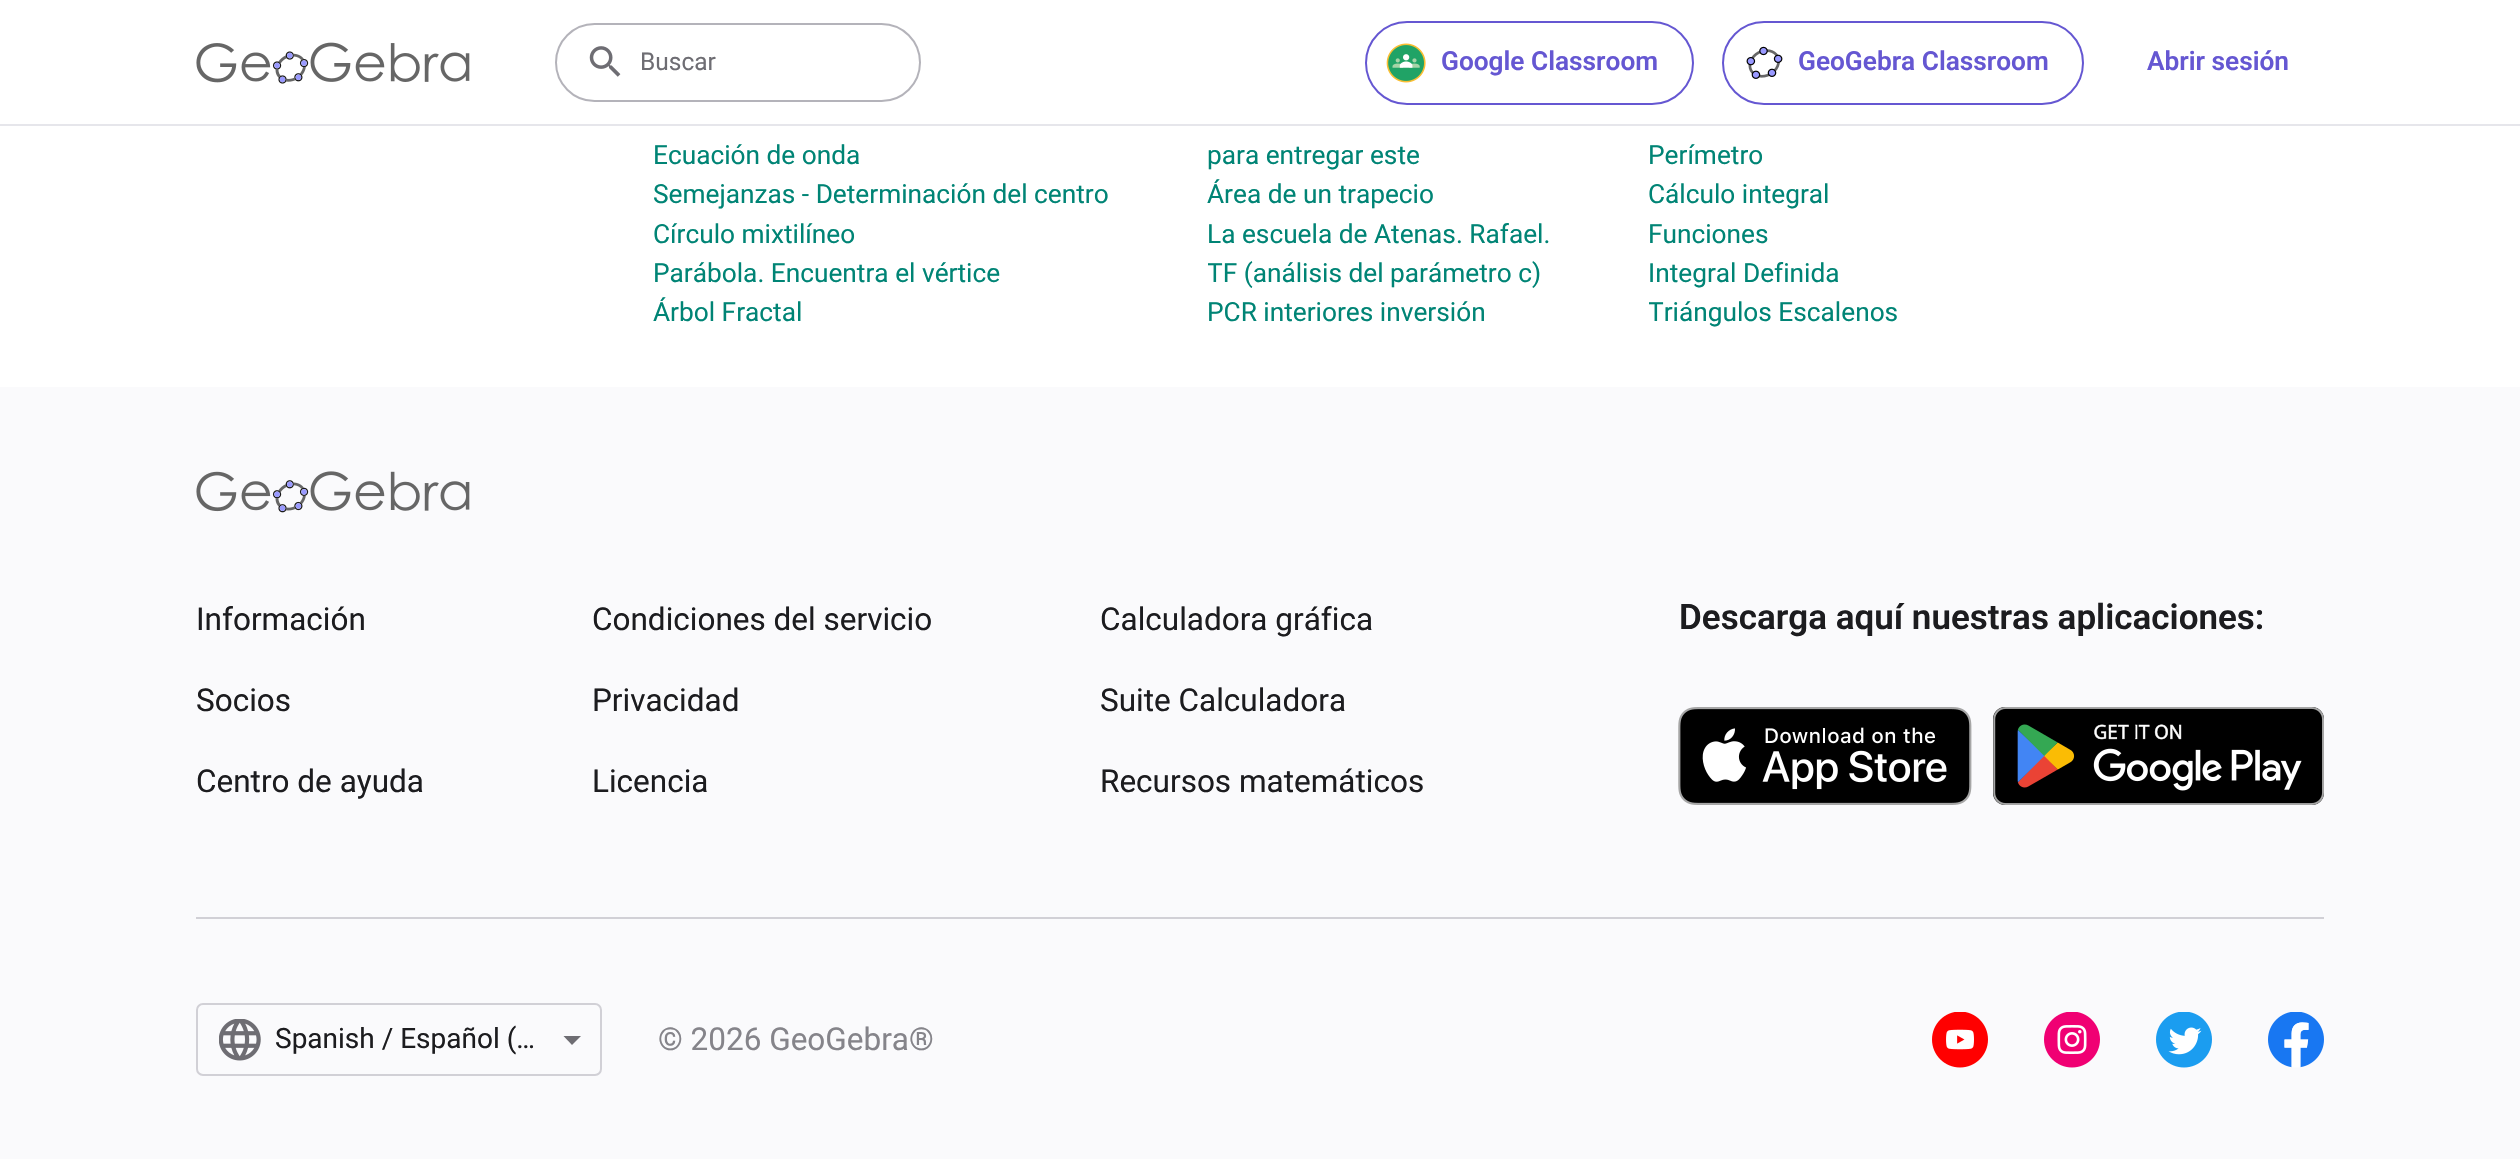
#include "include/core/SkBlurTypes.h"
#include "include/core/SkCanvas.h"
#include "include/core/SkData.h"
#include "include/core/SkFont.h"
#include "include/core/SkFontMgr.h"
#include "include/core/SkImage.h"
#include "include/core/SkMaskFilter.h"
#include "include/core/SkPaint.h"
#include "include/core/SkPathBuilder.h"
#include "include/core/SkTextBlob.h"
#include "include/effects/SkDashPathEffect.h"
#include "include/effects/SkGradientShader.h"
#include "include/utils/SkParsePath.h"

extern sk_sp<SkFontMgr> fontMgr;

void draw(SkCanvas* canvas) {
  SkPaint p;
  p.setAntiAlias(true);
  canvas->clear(SK_ColorWHITE);
  p.setColor(SkColorSetRGB(230, 230, 235));
  canvas->drawRect(SkRect::MakeLTRB(0, 124, 2520, 126), p);
  canvas->drawImageRect(SkImages::DeferredFromEncodedData(SkData::MakeFromFileName("images/1.png")), SkRect::MakeLTRB(196, 42, 470, 84), SkSamplingOptions());
  p.setStyle(SkPaint::kStroke_Style);
  p.setStrokeWidth(2);
  p.setColor(SkColorSetRGB(180, 179, 186));
  canvas->drawRoundRect(SkRect::MakeLTRB(556, 24, 920, 101), 38.5f, 38.5f, p);
  canvas->drawImageRect(SkImages::DeferredFromEncodedData(SkData::MakeFromFileName("images/2.png")), SkRect::MakeLTRB(589, 46, 621, 77), SkSamplingOptions());
  p.setColor(SkColorSetRGB(101, 87, 210));
  canvas->drawRoundRect(SkRect::MakeLTRB(1366, 22, 1693, 104), 41, 41, p);
  canvas->drawImageRect(SkImages::DeferredFromEncodedData(SkData::MakeFromFileName("images/3.png")), SkRect::MakeLTRB(1386, 43, 1426, 83), SkSamplingOptions());
  canvas->drawRoundRect(SkRect::MakeLTRB(1723, 22, 2083, 104), 41, 41, p);
  canvas->drawImageRect(SkImages::DeferredFromEncodedData(SkData::MakeFromFileName("images/4.png")), SkRect::MakeLTRB(1746, 46, 1783, 79), SkSamplingOptions());
  p.setStyle(SkPaint::kFill_Style);
  p.setColor(SkColorSetRGB(250, 250, 252));
  canvas->drawRect(SkRect::MakeLTRB(0, 387, 2520, 1159), p);
  canvas->drawImageRect(SkImages::DeferredFromEncodedData(SkData::MakeFromFileName("images/5.png")), SkRect::MakeLTRB(196, 471, 470, 513), SkSamplingOptions());
  canvas->drawImageRect(SkImages::DeferredFromEncodedData(SkData::MakeFromFileName("images/6.png")), SkRect::MakeLTRB(1678, 707, 1972, 805), SkSamplingOptions());
  canvas->drawImageRect(SkImages::DeferredFromEncodedData(SkData::MakeFromFileName("images/7.png")), SkRect::MakeLTRB(1993, 707, 2324, 805), SkSamplingOptions());
  p.setColor(SkColorSetRGB(209, 208, 214));
  canvas->drawRect(SkRect::MakeLTRB(196, 917, 2324, 919), p);
  p.setStyle(SkPaint::kStroke_Style);
  canvas->drawRoundRect(SkRect::MakeLTRB(197, 1004, 601, 1075), 6, 6, p);
  canvas->drawImageRect(SkImages::DeferredFromEncodedData(SkData::MakeFromFileName("images/8.png")), SkRect::MakeLTRB(219, 1019, 261, 1061), SkSamplingOptions());
  p.setStyle(SkPaint::kFill_Style);
  p.setColor(SkColorSetRGB(110, 109, 115));
  canvas->drawPath(SkPathBuilder().moveTo(563.5f, 1036).lineTo(572, 1045).lineTo(581, 1036).close().detach(), p);
  canvas->drawImageRect(SkImages::DeferredFromEncodedData(SkData::MakeFromFileName("images/9.png")), SkRect::MakeLTRB(1932, 1012, 1988, 1068), SkSamplingOptions());
  canvas->drawImageRect(SkImages::DeferredFromEncodedData(SkData::MakeFromFileName("images/10.png")), SkRect::MakeLTRB(2044, 1012, 2100, 1068), SkSamplingOptions());
  canvas->drawImageRect(SkImages::DeferredFromEncodedData(SkData::MakeFromFileName("images/11.png")), SkRect::MakeLTRB(2156, 1012, 2212, 1068), SkSamplingOptions());
  canvas->drawImageRect(SkImages::DeferredFromEncodedData(SkData::MakeFromFileName("images/12.png")), SkRect::MakeLTRB(2268, 1012, 2324, 1068), SkSamplingOptions());
  SkFont font1(fontMgr->matchFamilyStyle("Roboto", SkFontStyle::Normal()), 24.5f);
  font1.setSubpixel(true);
  canvas->drawString("Buscar", 640, 70, font1, p);
  SkFont font2(fontMgr->matchFamilyStyle("Roboto", SkFontStyle(600, SkFontStyle::kNormal_Width, SkFontStyle::kUpright_Slant)), 26.25f);
  font2.setSubpixel(true);
  p.setColor(SkColorSetRGB(101, 87, 210));
  canvas->drawString("Google Classroom", 1441, 70, font2, p);
  canvas->drawString("GeoGebra Classroom", 1798, 70, font2, p);
  canvas->drawString("Abrir sesión", 2147, 70, font2, p);
  SkFont font3(fontMgr->matchFamilyStyle("Roboto", SkFontStyle::Normal()), 26.25f);
  font3.setSubpixel(true);
  p.setColor(SkColorSetRGB(0, 132, 117));
  canvas->drawString("Ecuación de onda", 653, 164, font3, p);
  canvas->drawString("Semejanzas - Determinación del centro", 653, 203, font3, p);
  canvas->drawString("Círculo mixtilíneo", 653, 243, font3, p);
  canvas->drawString("Parábola. Encuentra el vértice", 653, 282, font3, p);
  canvas->drawString("Árbol Fractal", 653, 321, font3, p);
  canvas->drawString("para entregar este", 1207, 164, font3, p);
  canvas->drawString("Área de un trapecio", 1207, 203, font3, p);
  canvas->drawString("La escuela de Atenas. Rafael.", 1207, 243, font3, p);
  canvas->save();
  canvas->clipRect(SkRect::MakeLTRB(1208, 254, 1551, 294));
  canvas->drawString("TF (análisis del parámetro c)", 1207, 282, font3, p);
  canvas->restore();
  canvas->drawString("PCR interiores inversión", 1207, 321, font3, p);
  canvas->drawString("Perímetro", 1648, 164, font3, p);
  canvas->drawString("Cálculo integral", 1648, 203, font3, p);
  canvas->drawString("Funciones", 1648, 243, font3, p);
  canvas->drawString("Integral Definida", 1648, 282, font3, p);
  canvas->save();
  canvas->clipRect(SkRect::MakeLTRB(1649, 294, 1909, 333));
  canvas->drawString("Triángulos Escalenos", 1648, 321, font3, p);
  canvas->restore();
  SkFont font4(fontMgr->matchFamilyStyle("Roboto", SkFontStyle::Normal()), 31.5f);
  font4.setSubpixel(true);
  p.setColor(SkColorSetRGB(28, 28, 31));
  canvas->drawString("Información", 196, 630, font4, p);
  canvas->drawString("Socios", 196, 711, font4, p);
  canvas->drawString("Centro de ayuda", 196, 792, font4, p);
  canvas->drawString("Condiciones del servicio", 592, 630, font4, p);
  canvas->drawString("Privacidad", 592, 711, font4, p);
  canvas->drawString("Licencia", 592, 792, font4, p);
  canvas->drawString("Calculadora gráfica", 1100, 630, font4, p);
  canvas->drawString("Suite Calculadora", 1100, 711, font4, p);
  canvas->drawString("Recursos matemáticos", 1100, 792, font4, p);
  SkFont font5(fontMgr->matchFamilyStyle("Roboto", SkFontStyle(600, SkFontStyle::kNormal_Width, SkFontStyle::kUpright_Slant)), 35);
  font5.setSubpixel(true);
  canvas->drawString("Descarga aquí nuestras aplicaciones:", 1679, 629, font5, p);
  SkFont font6(fontMgr->matchFamilyStyle("Roboto", SkFontStyle::Normal()), 28);
  font6.setSubpixel(true);
  canvas->drawString("Spanish / Español (…", 275, 1048, font6, p);
  p.setColor(SkColorSetRGB(133, 132, 138));
  canvas->drawString("© 2026 GeoGebra®", 658, 1050, font4, p);
}
